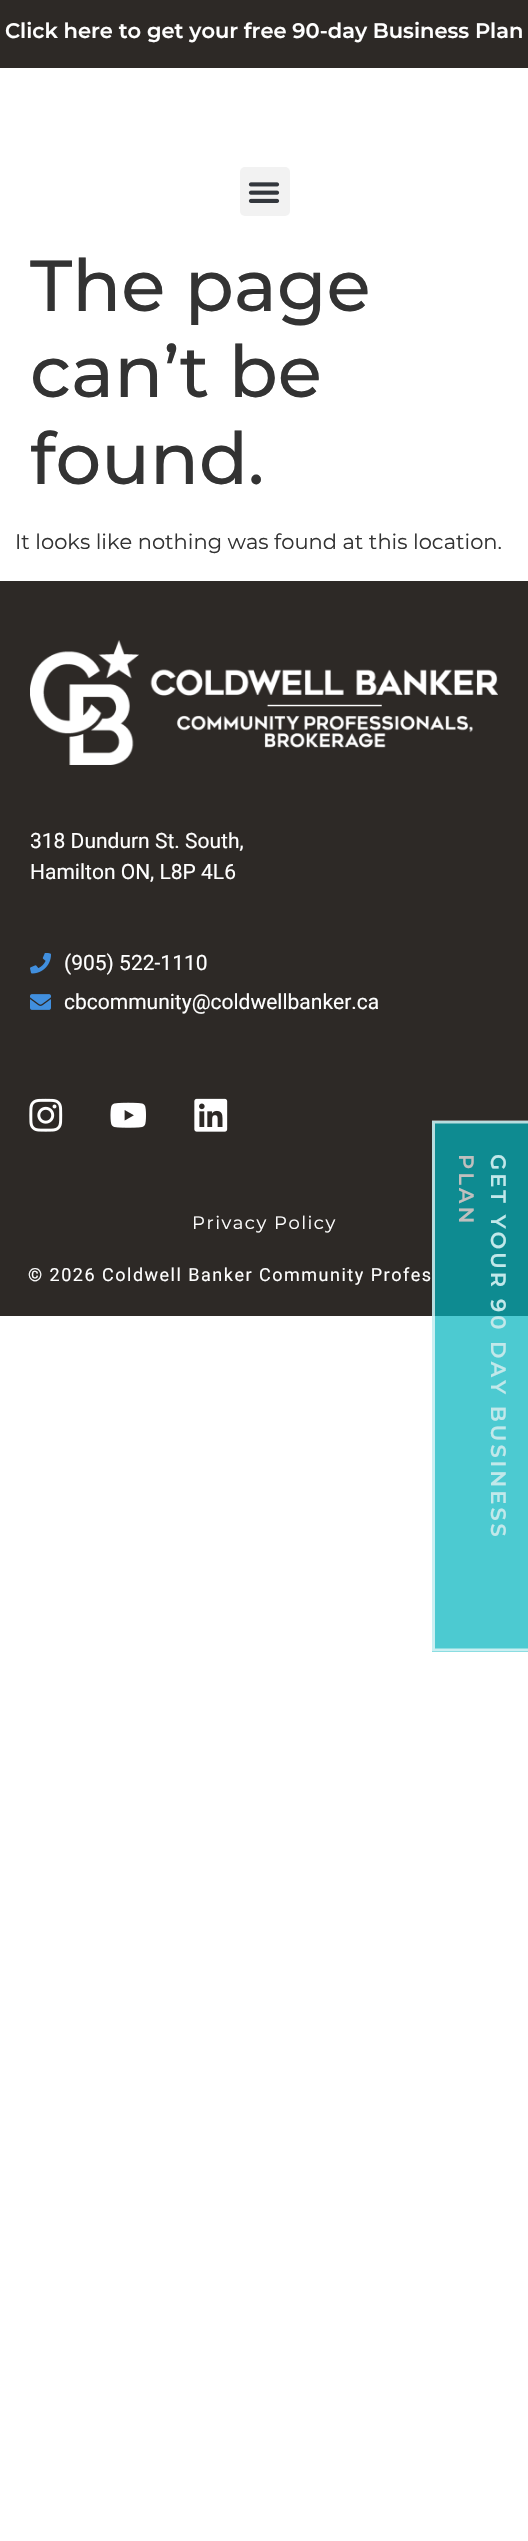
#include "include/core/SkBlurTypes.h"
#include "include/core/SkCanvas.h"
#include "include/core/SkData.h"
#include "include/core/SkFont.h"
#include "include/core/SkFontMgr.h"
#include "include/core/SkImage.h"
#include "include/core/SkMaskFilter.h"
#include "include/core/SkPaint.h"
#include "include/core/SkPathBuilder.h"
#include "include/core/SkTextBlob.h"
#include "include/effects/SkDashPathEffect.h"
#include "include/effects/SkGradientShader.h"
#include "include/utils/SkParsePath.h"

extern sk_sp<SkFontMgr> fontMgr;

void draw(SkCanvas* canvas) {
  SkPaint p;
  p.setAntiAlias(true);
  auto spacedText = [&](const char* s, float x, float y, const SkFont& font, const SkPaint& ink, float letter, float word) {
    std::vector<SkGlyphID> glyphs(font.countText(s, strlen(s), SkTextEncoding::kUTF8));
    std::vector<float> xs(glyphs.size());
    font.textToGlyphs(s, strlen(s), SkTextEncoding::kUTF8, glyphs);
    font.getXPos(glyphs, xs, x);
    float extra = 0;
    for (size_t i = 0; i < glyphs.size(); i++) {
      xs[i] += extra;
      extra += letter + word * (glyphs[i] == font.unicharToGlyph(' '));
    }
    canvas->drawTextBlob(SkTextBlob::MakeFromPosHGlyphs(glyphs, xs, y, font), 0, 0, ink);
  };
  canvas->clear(SK_ColorWHITE);
  p.setColor(SkColorSetRGB(45, 41, 38));
  canvas->drawRect(SkRect::MakeLTRB(0, 0, 528, 68), p);
  p.setColor(SkColorSetRGB(242, 242, 242));
  canvas->drawRoundRect(SkRect::MakeLTRB(240, 167, 290, 216), 5, 5, p);
  canvas->drawImageRect(SkImages::DeferredFromEncodedData(SkData::MakeFromFileName("images/1.png")), SkRect::MakeLTRB(248, 182, 280, 203), SkSamplingOptions());
  p.setColor(SkColorSetRGB(45, 41, 38));
  canvas->drawRect(SkRect::MakeLTRB(0, 581, 528, 1316), p);
  canvas->drawImageRect(SkImages::DeferredFromEncodedData(SkData::MakeFromFileName("images/2.png")), SkRect::MakeLTRB(30, 640, 498, 765), SkSamplingOptions());
  canvas->drawImageRect(SkImages::DeferredFromEncodedData(SkData::MakeFromFileName("images/3.png")), SkRect::MakeLTRB(30, 953, 51, 974), SkSamplingOptions());
  canvas->drawImageRect(SkImages::DeferredFromEncodedData(SkData::MakeFromFileName("images/4.png")), SkRect::MakeLTRB(30, 994, 51, 1010), SkSamplingOptions());
  canvas->drawImageRect(SkImages::DeferredFromEncodedData(SkData::MakeFromFileName("images/5.png")), SkRect::MakeLTRB(29, 1098, 63, 1132), SkSamplingOptions());
  canvas->drawImageRect(SkImages::DeferredFromEncodedData(SkData::MakeFromFileName("images/6.png")), SkRect::MakeLTRB(110, 1102, 146, 1128), SkSamplingOptions());
  canvas->drawImageRect(SkImages::DeferredFromEncodedData(SkData::MakeFromFileName("images/7.png")), SkRect::MakeLTRB(194, 1098, 228, 1132), SkSamplingOptions());
  p.setColor(SkColorSetARGB(179, 0, 180, 189));
  canvas->drawRect(SkRect::MakeLTRB(432, 1121, 528, 1652), p);
  p.setStyle(SkPaint::kStroke_Style);
  p.setStrokeWidth(3);
  p.setColor(SkColorSetARGB(179, 255, 255, 255));
  canvas->drawPath(SkPathBuilder().moveTo(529.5f, 1122).lineTo(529.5f, 1650).lineTo(433.5f, 1650).lineTo(433.5f, 1122).close().detach(), p);
  SkFont font1(fontMgr->matchFamilyStyle("Montserrat", SkFontStyle(600, SkFontStyle::kNormal_Width, SkFontStyle::kUpright_Slant)), 21);
  font1.setSubpixel(true);
  p.setStyle(SkPaint::kFill_Style);
  p.setColor(SK_ColorWHITE);
  canvas->drawString("Click here to get your free 90-day Business Plan", 5, 38, font1, p);
  SkFont font2(fontMgr->matchFamilyStyle("Montserrat", SkFontStyle(500, SkFontStyle::kNormal_Width, SkFontStyle::kUpright_Slant)), 72);
  font2.setSubpixel(true);
  p.setColor(SkColorSetRGB(51, 51, 51));
  canvas->drawString("The page", 30, 311, font2, p);
  canvas->drawString("can’t be", 30, 397, font2, p);
  canvas->drawString("found.", 30, 484, font2, p);
  SkFont font3(fontMgr->matchFamilyStyle("Montserrat", SkFontStyle::Normal()), 21);
  font3.setSubpixel(true);
  canvas->drawString("It looks like nothing was found at this location.", 15, 549, font3, p);
  SkFont font4(fontMgr->matchFamilyStyle("Roboto", SkFontStyle::Normal()), 21);
  font4.setSubpixel(true);
  p.setColor(SK_ColorWHITE);
  canvas->drawString("318 Dundurn St. South,", 30, 848, font4, p);
  canvas->drawString("Hamilton ON, L8P 4L6", 30, 879, font4, p);
  canvas->drawString("(905) 522-1110", 64, 970, font4, p);
  canvas->drawString("cbcommunity@coldwellbanker.ca", 64, 1009, font4, p);
  SkFont font5(fontMgr->matchFamilyStyle("Montserrat", SkFontStyle::Normal()), 18);
  font5.setSubpixel(true);
  spacedText("Privacy Policy", 192, 1229, font5, p, 1.5f, 0);
  SkFont font6(fontMgr->matchFamilyStyle("Roboto", SkFontStyle::Normal()), 18);
  font6.setSubpixel(true);
  spacedText("© 2026 Coldwell Banker Community Profes", 28, 1281, font6, p, 1.5f, 0);
  p.setColor(SkColorSetRGB(192, 191, 190));
  canvas->save();
  canvas->rotate(90, 459, 1154);
  spacedText("PLAN", 459, 1154, font1, p, 3, 0);
  canvas->restore();
  p.setColor(SkColorSetRGB(194, 232, 234));
  canvas->save();
  canvas->rotate(90, 491, 1154);
  spacedText("GET YOUR 90 DAY BUSINESS", 491, 1154, font1, p, 3, 0);
  canvas->restore();
}
